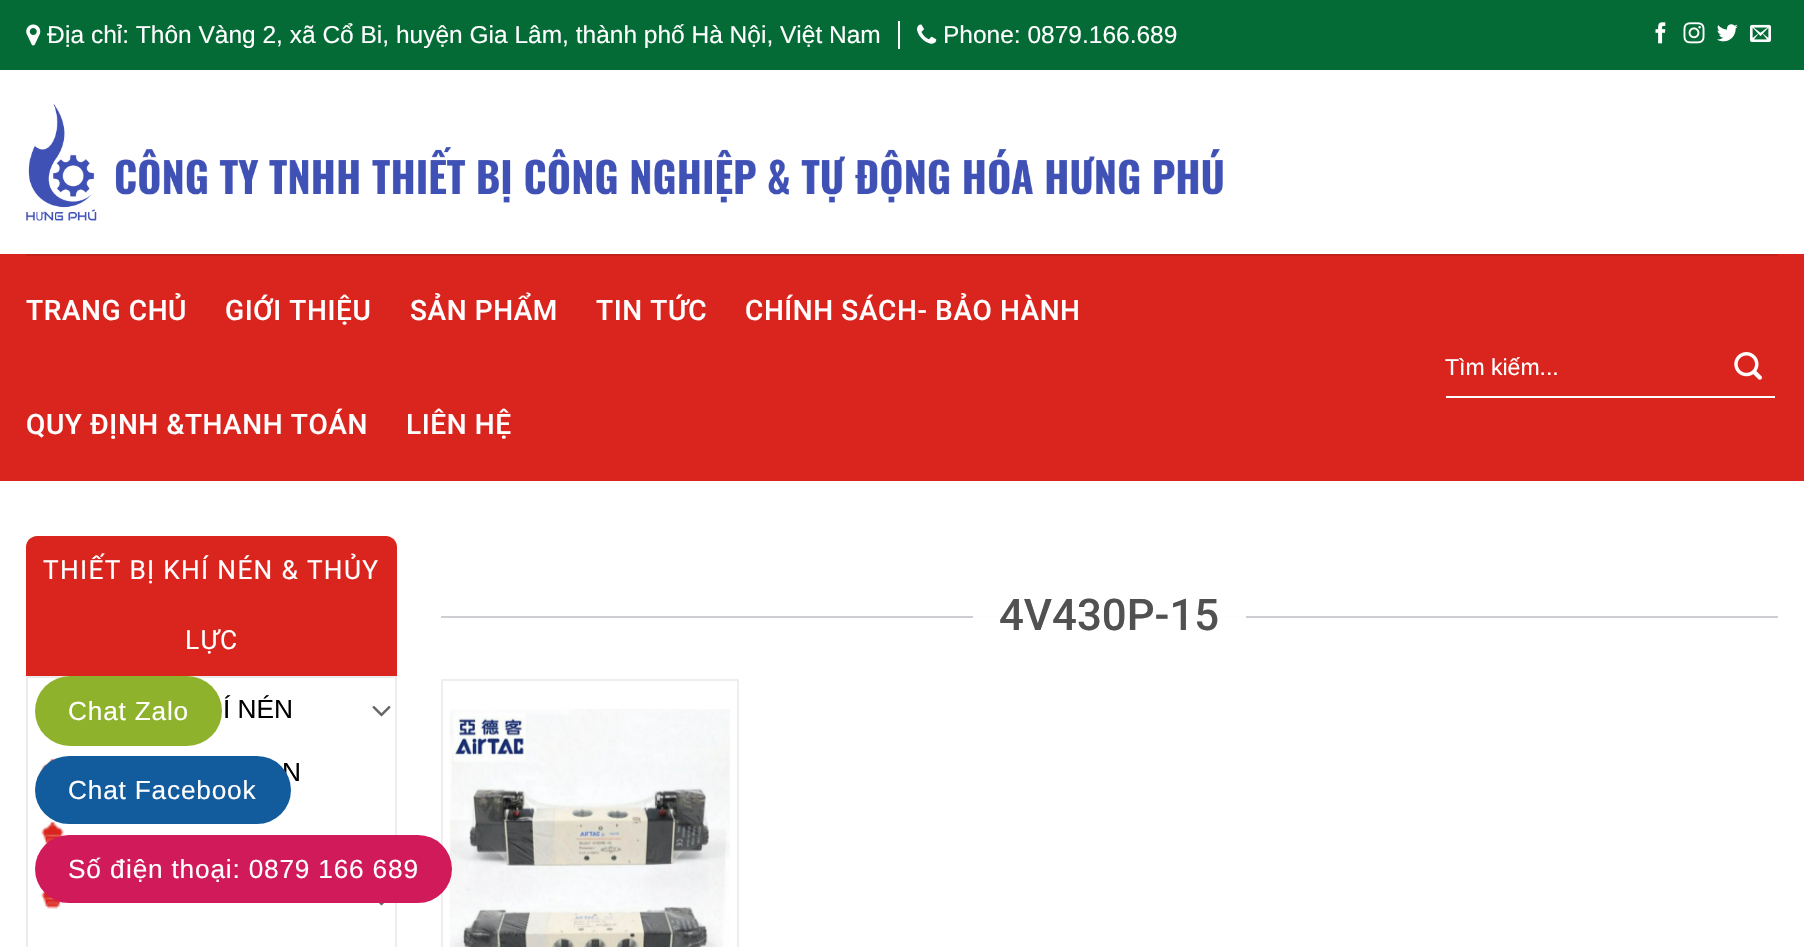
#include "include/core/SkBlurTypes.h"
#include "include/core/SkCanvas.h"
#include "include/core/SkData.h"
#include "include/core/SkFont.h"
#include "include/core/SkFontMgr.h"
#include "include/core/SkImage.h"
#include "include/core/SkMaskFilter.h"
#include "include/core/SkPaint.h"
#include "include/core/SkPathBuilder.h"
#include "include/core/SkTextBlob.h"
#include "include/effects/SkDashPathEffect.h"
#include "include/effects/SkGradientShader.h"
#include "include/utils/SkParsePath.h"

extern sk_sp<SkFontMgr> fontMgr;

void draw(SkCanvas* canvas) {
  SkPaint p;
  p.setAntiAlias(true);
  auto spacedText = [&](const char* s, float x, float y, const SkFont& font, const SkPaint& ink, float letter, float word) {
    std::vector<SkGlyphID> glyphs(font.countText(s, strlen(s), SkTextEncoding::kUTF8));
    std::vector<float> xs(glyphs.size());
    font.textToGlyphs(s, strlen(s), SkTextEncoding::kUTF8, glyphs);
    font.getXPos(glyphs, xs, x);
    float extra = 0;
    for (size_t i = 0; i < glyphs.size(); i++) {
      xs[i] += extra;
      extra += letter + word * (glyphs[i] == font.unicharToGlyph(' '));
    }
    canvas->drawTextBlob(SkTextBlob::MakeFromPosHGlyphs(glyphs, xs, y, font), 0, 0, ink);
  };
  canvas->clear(SK_ColorWHITE);
  p.setColor(SkColorSetRGB(4, 107, 54));
  canvas->drawRect(SkRect::MakeLTRB(0, 0, 1804, 70), p);
  p.setColor(SK_ColorWHITE);
  canvas->drawRect(SkRect::MakeLTRB(898, 21, 900, 49), p);
  canvas->drawImageRect(SkImages::DeferredFromEncodedData(SkData::MakeFromFileName("images/1.png")), SkRect::MakeLTRB(26, 24, 41, 46), SkSamplingOptions());
  canvas->drawImageRect(SkImages::DeferredFromEncodedData(SkData::MakeFromFileName("images/2.png")), SkRect::MakeLTRB(917, 24, 937, 44), SkSamplingOptions());
  canvas->drawImageRect(SkImages::DeferredFromEncodedData(SkData::MakeFromFileName("images/3.png")), SkRect::MakeLTRB(1655, 22, 1666, 44), SkSamplingOptions());
  canvas->drawImageRect(SkImages::DeferredFromEncodedData(SkData::MakeFromFileName("images/4.png")), SkRect::MakeLTRB(1683, 22, 1705, 44), SkSamplingOptions());
  canvas->drawImageRect(SkImages::DeferredFromEncodedData(SkData::MakeFromFileName("images/5.png")), SkRect::MakeLTRB(1717, 24, 1738, 42), SkSamplingOptions());
  canvas->drawImageRect(SkImages::DeferredFromEncodedData(SkData::MakeFromFileName("images/6.png")), SkRect::MakeLTRB(1750, 24, 1771, 42), SkSamplingOptions());
  canvas->drawImageRect(SkImages::DeferredFromEncodedData(SkData::MakeFromFileName("images/7.png")), SkRect::MakeLTRB(26, 103, 1223, 221), SkSamplingOptions());
  p.setColor(SkColorSetRGB(218, 37, 30));
  canvas->drawRect(SkRect::MakeLTRB(0, 254, 1804, 481), p);
  p.setColor(SkColorSetRGB(196, 33, 27));
  canvas->drawRect(SkRect::MakeLTRB(26, 254, 1778, 256), p);
  p.setColor(SK_ColorWHITE);
  canvas->drawRect(SkRect::MakeLTRB(1446, 396, 1775, 398), p);
  canvas->drawImageRect(SkImages::DeferredFromEncodedData(SkData::MakeFromFileName("images/8.png")), SkRect::MakeLTRB(1734, 352, 1762, 380), SkSamplingOptions());
  p.setColor(SkColorSetRGB(218, 37, 30));
  canvas->drawPath(SkPathBuilder().moveTo(37, 536).lineTo(386, 536).cubicTo(392, 536, 397, 541, 397, 547).lineTo(397, 676).lineTo(26, 676).lineTo(26, 547).cubicTo(26, 541, 31, 536, 37, 536).close().detach(), p);
  p.setStyle(SkPaint::kStroke_Style);
  p.setStrokeWidth(2);
  p.setColor(SkColorSetRGB(236, 236, 236));
  canvas->drawRect(SkRect::MakeLTRB(27, 677, 396, 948), p);
  canvas->drawImageRect(SkImages::DeferredFromEncodedData(SkData::MakeFromFileName("images/9.png")), SkRect::MakeLTRB(372, 705, 391, 717), SkSamplingOptions());
  canvas->drawImageRect(SkImages::DeferredFromEncodedData(SkData::MakeFromFileName("images/10.png")), SkRect::MakeLTRB(41, 758, 55, 771), SkSamplingOptions());
  canvas->drawImageRect(SkImages::DeferredFromEncodedData(SkData::MakeFromFileName("images/11.png")), SkRect::MakeLTRB(41, 821, 64, 844), SkSamplingOptions());
  canvas->drawImageRect(SkImages::DeferredFromEncodedData(SkData::MakeFromFileName("images/12.png")), SkRect::MakeLTRB(41, 891, 62, 909), SkSamplingOptions());
  canvas->drawImageRect(SkImages::DeferredFromEncodedData(SkData::MakeFromFileName("images/13.png")), SkRect::MakeLTRB(379, 903, 384, 906), SkSamplingOptions());
  p.setStyle(SkPaint::kFill_Style);
  p.setColor(SkColorSetRGB(205, 206, 209));
  canvas->drawRect(SkRect::MakeLTRB(441, 616, 1778, 618), p);
  p.setColor(SkColorSetRGB(253, 253, 253));
  canvas->drawRect(SkRect::MakeLTRB(973, 616, 1246, 618), p);
  p.setStyle(SkPaint::kStroke_Style);
  p.setColor(SkColorSetRGB(238, 238, 238));
  canvas->drawRect(SkRect::MakeLTRB(442, 680, 738, 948), p);
  canvas->drawImageRect(SkImages::DeferredFromEncodedData(SkData::MakeFromFileName("images/14.png")), SkRect::MakeLTRB(449, 709, 730, 947), SkSamplingOptions());
  p.setStyle(SkPaint::kFill_Style);
  p.setColor(SkColorSetRGB(142, 178, 43));
  canvas->drawRoundRect(SkRect::MakeLTRB(35, 676, 222, 746), 35, 35, p);
  p.setColor(SkColorSetRGB(209, 26, 89));
  canvas->drawRoundRect(SkRect::MakeLTRB(35, 835, 452, 903), 34, 34, p);
  SkFont font1(fontMgr->matchFamilyStyle("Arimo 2", SkFontStyle::Normal()), 24.5f);
  font1.setSubpixel(true);
  p.setColor(SK_ColorWHITE);
  canvas->drawString("Đ", 47, 43, font1, p);
  SkFont font2(fontMgr->matchFamilyStyle("Arimo", SkFontStyle::Normal()), 24.5f);
  font2.setSubpixel(true);
  canvas->drawString("ịa chỉ: Thôn Vàng 2, xã Cổ Bi, huyện Gia Lâm, thành phố Hà Nội, Việt Nam", 65, 43, font2, p);
  canvas->drawString("Phone: 0879.166.689", 943, 43, font2, p);
  SkFont font3(fontMgr->matchFamilyStyle("Roboto", SkFontStyle(500, SkFontStyle::kNormal_Width, SkFontStyle::kUpright_Slant)), 28);
  font3.setSubpixel(true);
  spacedText("TRANG CHỦ", 26, 320, font3, p, 0.6f, 0);
  spacedText("GIỚI THIỆU", 225, 320, font3, p, 0.6f, 0);
  spacedText("SẢN PHẨM", 410, 320, font3, p, 0.6f, 0);
  spacedText("TIN TỨC", 596, 320, font3, p, 0.6f, 0);
  spacedText("CHÍNH SÁCH- BẢO HÀNH", 745, 320, font3, p, 0.6f, 0);
  spacedText("QUY ĐỊNH &THANH TOÁN", 26, 434, font3, p, 0.6f, 0);
  spacedText("LIÊN HỆ", 406, 434, font3, p, 0.6f, 0);
  SkFont font4(fontMgr->matchFamilyStyle("Arimo", SkFontStyle::Normal()), 23);
  font4.setSubpixel(true);
  canvas->drawString("Tìm kiếm...", 1445, 375, font4, p);
  SkFont font5(fontMgr->matchFamilyStyle("Roboto", SkFontStyle::Normal()), 26.25f);
  font5.setSubpixel(true);
  spacedText("THIẾT BỊ KHÍ NÉN & THỦY", 43, 579, font5, p, 1.3f, 0);
  spacedText("LỰC", 185, 649, font5, p, 1.3f, 0);
  SkFont font6(fontMgr->matchFamilyStyle("Arimo", SkFontStyle::Normal()), 26.25f);
  font6.setSubpixel(true);
  p.setColor(SK_ColorBLACK);
  canvas->drawString("Í NÉN", 223, 718, font6, p);
  canvas->drawString("N", 282, 781, font6, p);
  SkFont font7(fontMgr->matchFamilyStyle("Roboto", SkFontStyle(500, SkFontStyle::kNormal_Width, SkFontStyle::kUpright_Slant)), 43.75f);
  font7.setSubpixel(true);
  p.setColor(SkColorSetRGB(81, 81, 81));
  canvas->drawString("4V430P-15", 999, 630, font7, p);
  p.setColor(SK_ColorWHITE);
  spacedText("Chat Zalo", 68, 720, font6, p, 0.8f, 0);
  p.setColor(SkColorSetRGB(18, 92, 158));
  canvas->drawRoundRect(SkRect::MakeLTRB(35, 756, 291, 824), 34, 34, p);
  p.setColor(SK_ColorWHITE);
  spacedText("Chat Facebook", 68, 799, font6, p, 0.8f, 0);
  spacedText("Số", 68, 878, font6, p, 0.8f, 0);
  SkFont font8(fontMgr->matchFamilyStyle("Arimo 2", SkFontStyle::Normal()), 26.25f);
  font8.setSubpixel(true);
  spacedText("đ", 110, 878, font8, p, 0.8f, 0);
  spacedText("iện thoại: 0879 166 689", 126, 878, font6, p, 0.8f, 0);
}
